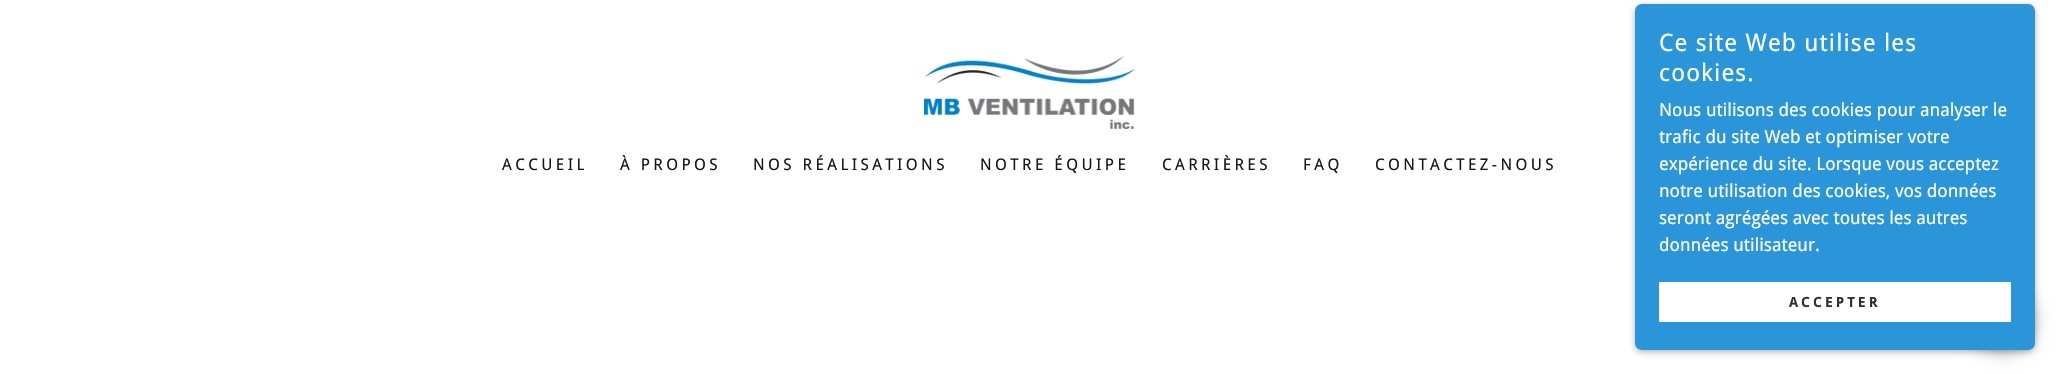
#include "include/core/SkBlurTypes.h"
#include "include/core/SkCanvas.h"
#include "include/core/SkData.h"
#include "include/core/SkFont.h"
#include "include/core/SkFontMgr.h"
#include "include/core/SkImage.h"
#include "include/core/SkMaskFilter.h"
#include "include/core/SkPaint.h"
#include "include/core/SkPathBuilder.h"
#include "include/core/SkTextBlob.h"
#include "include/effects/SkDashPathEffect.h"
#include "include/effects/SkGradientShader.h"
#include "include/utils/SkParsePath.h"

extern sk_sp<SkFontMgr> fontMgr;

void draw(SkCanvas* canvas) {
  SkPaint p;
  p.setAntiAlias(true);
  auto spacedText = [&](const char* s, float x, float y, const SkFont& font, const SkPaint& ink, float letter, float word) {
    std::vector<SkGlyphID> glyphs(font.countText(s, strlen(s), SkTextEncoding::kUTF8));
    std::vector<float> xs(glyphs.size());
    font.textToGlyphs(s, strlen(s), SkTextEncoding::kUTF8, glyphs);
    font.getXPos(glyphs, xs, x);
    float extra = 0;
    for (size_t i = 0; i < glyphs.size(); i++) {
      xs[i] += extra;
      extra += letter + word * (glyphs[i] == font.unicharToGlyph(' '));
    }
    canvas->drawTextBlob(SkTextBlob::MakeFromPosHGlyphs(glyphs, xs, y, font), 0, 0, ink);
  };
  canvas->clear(SK_ColorWHITE);
  canvas->drawImageRect(SkImages::DeferredFromEncodedData(SkData::MakeFromFileName("images/1.png")), SkRect::MakeLTRB(924, 56, 1135, 129), SkSamplingOptions());
  p.setColor(SkColorSetARGB(77, 0, 0, 0));
  p.setMaskFilter(SkMaskFilter::MakeBlur(kNormal_SkBlurStyle, 3));
  canvas->drawRoundRect(SkRect::MakeLTRB(1635, 6, 2035, 352), 7, 7, p);
  p.setMaskFilter(nullptr);
  p.setColor(SkColorSetARGB(64, 0, 0, 0));
  p.setMaskFilter(SkMaskFilter::MakeBlur(kNormal_SkBlurStyle, 9));
  canvas->drawRoundRect(SkRect::MakeLTRB(1970, 288, 2035, 353), 32.5f, 32.5f, p);
  p.setMaskFilter(nullptr);
  p.setColor(SkColorSetRGB(43, 149, 217));
  canvas->drawRoundRect(SkRect::MakeLTRB(1635, 4, 2035, 350), 7, 7, p);
  p.setColor(SK_ColorWHITE);
  canvas->drawRect(SkRect::MakeLTRB(1659, 282, 2011, 322), p);
  SkFont font1(fontMgr->matchFamilyStyle("Droid Sans", SkFontStyle::Normal()), 16);
  font1.setSubpixel(true);
  p.setColor(SkColorSetRGB(21, 21, 21));
  spacedText("ACCUEIL", 502, 170, font1, p, 3.4f, 0);
  spacedText("À PROPOS", 620, 170, font1, p, 3.4f, 0);
  spacedText("NOS RÉALISATIONS", 753, 170, font1, p, 3.4f, 0);
  spacedText("NOTRE ÉQUIPE", 980, 170, font1, p, 3.4f, 0);
  spacedText("CARRIÈRES", 1162, 170, font1, p, 3.4f, 0);
  spacedText("FAQ", 1303, 170, font1, p, 3.4f, 0);
  spacedText("CONTACTEZ-NOUS", 1375, 170, font1, p, 3.4f, 0);
  SkFont font2(fontMgr->matchFamilyStyle("Droid Sans", SkFontStyle::Normal()), 24);
  font2.setSubpixel(true);
  p.setColor(SK_ColorWHITE);
  spacedText("Ce site Web utilise les", 1659, 51, font2, p, 1.1f, 0);
  spacedText("cookies.", 1659, 81, font2, p, 1.1f, 0);
  SkFont font3(fontMgr->matchFamilyStyle("Droid Sans", SkFontStyle::Normal()), 18);
  font3.setSubpixel(true);
  canvas->drawString("Nous utilisons des cookies pour analyser le", 1659, 116, font3, p);
  canvas->drawString("trafic du site Web et optimiser votre", 1659, 143, font3, p);
  canvas->drawString("expérience du site. Lorsque vous acceptez", 1659, 170, font3, p);
  canvas->drawString("notre utilisation des cookies, vos données", 1659, 197, font3, p);
  canvas->drawString("seront agrégées avec toutes les autres", 1659, 224, font3, p);
  canvas->drawString("données utilisateur.", 1659, 251, font3, p);
  SkFont font4(fontMgr->matchFamilyStyle("Droid Sans", SkFontStyle::Bold()), 14);
  font4.setSubpixel(true);
  p.setColor(SkColorSetRGB(48, 48, 48));
  spacedText("ACCEPTER", 1789, 307, font4, p, 3, 0);
}
